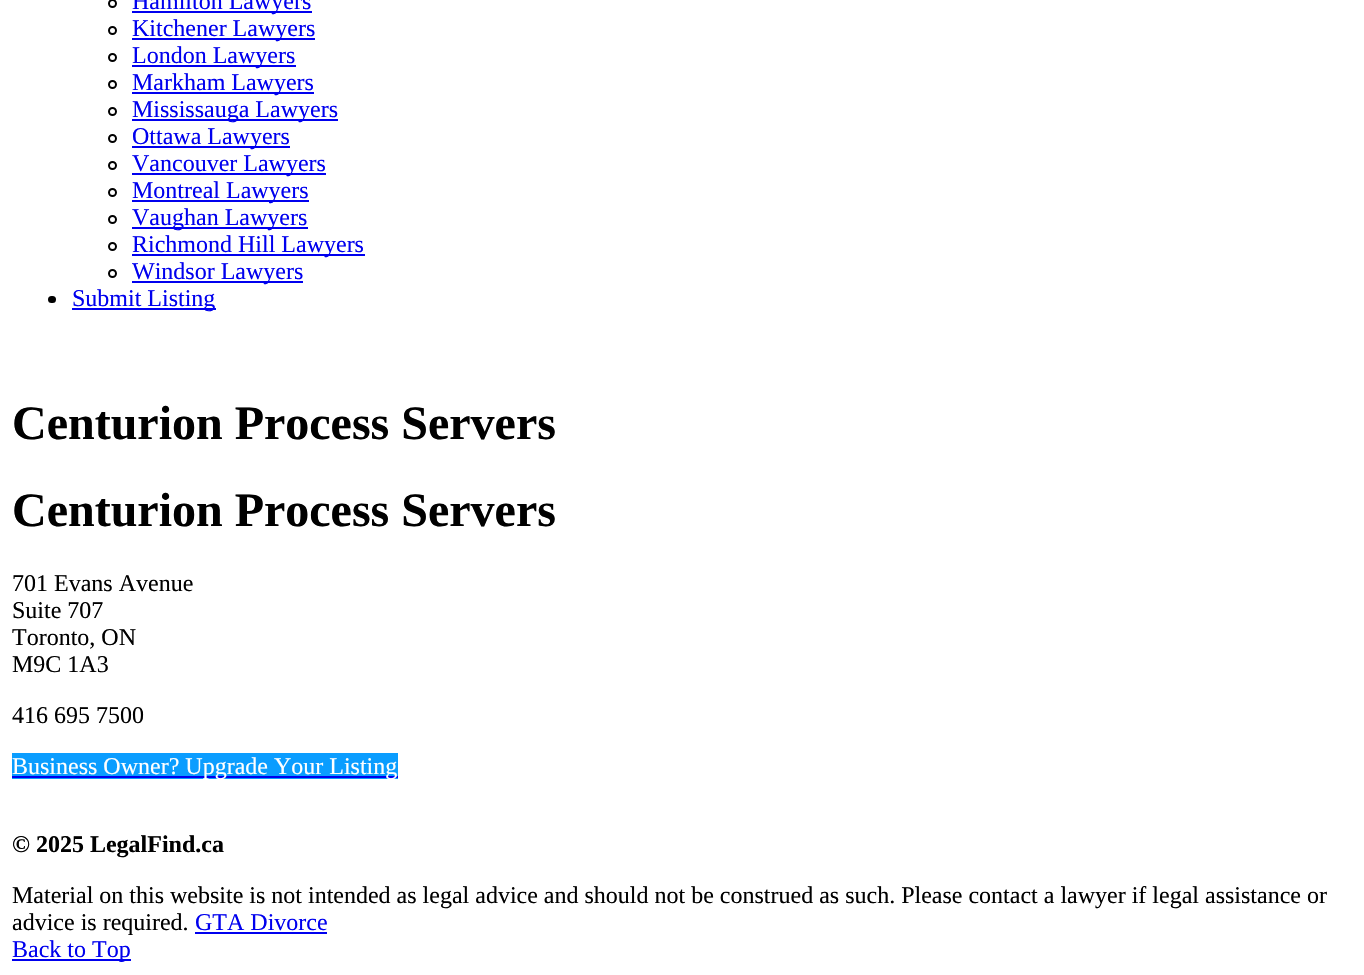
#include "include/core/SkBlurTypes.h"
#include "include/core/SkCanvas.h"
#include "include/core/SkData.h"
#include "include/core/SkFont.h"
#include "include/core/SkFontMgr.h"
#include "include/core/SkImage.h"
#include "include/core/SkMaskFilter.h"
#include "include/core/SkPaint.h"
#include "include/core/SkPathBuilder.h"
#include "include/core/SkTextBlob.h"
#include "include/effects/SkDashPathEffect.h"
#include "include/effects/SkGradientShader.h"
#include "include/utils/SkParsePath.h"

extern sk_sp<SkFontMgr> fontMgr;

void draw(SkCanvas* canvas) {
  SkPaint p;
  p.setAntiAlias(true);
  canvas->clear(SK_ColorWHITE);
  p.setStyle(SkPaint::kStroke_Style);
  p.setStrokeWidth(2);
  p.setColor(SK_ColorBLACK);
  canvas->drawCircle(112.5f, 3.5f, 3.5f, p);
  p.setStyle(SkPaint::kFill_Style);
  p.setColor(SkColorSetRGB(0, 0, 238));
  canvas->drawRect(SkRect::MakeLTRB(132, 11, 312, 13), p);
  p.setStyle(SkPaint::kStroke_Style);
  p.setColor(SK_ColorBLACK);
  canvas->drawCircle(112.5f, 30.5f, 3.5f, p);
  p.setStyle(SkPaint::kFill_Style);
  p.setColor(SkColorSetRGB(0, 0, 238));
  canvas->drawRect(SkRect::MakeLTRB(132, 38, 315, 40), p);
  p.setStyle(SkPaint::kStroke_Style);
  p.setColor(SK_ColorBLACK);
  canvas->drawCircle(112.5f, 57.5f, 3.5f, p);
  p.setStyle(SkPaint::kFill_Style);
  p.setColor(SkColorSetRGB(0, 0, 238));
  canvas->drawRect(SkRect::MakeLTRB(132, 65, 296, 67), p);
  p.setStyle(SkPaint::kStroke_Style);
  p.setColor(SK_ColorBLACK);
  canvas->drawCircle(112.5f, 84.5f, 3.5f, p);
  p.setStyle(SkPaint::kFill_Style);
  p.setColor(SkColorSetRGB(0, 0, 238));
  canvas->drawRect(SkRect::MakeLTRB(132, 92, 314, 94), p);
  p.setStyle(SkPaint::kStroke_Style);
  p.setColor(SK_ColorBLACK);
  canvas->drawCircle(112.5f, 111.5f, 3.5f, p);
  p.setStyle(SkPaint::kFill_Style);
  p.setColor(SkColorSetRGB(0, 0, 238));
  canvas->drawRect(SkRect::MakeLTRB(132, 119, 338, 121), p);
  p.setStyle(SkPaint::kStroke_Style);
  p.setColor(SK_ColorBLACK);
  canvas->drawCircle(112.5f, 138.5f, 3.5f, p);
  p.setStyle(SkPaint::kFill_Style);
  p.setColor(SkColorSetRGB(0, 0, 238));
  canvas->drawRect(SkRect::MakeLTRB(132, 146, 290, 148), p);
  p.setStyle(SkPaint::kStroke_Style);
  p.setColor(SK_ColorBLACK);
  canvas->drawCircle(112.5f, 165.5f, 3.5f, p);
  p.setStyle(SkPaint::kFill_Style);
  p.setColor(SkColorSetRGB(0, 0, 238));
  canvas->drawRect(SkRect::MakeLTRB(132, 173, 326, 175), p);
  p.setStyle(SkPaint::kStroke_Style);
  p.setColor(SK_ColorBLACK);
  canvas->drawCircle(112.5f, 192.5f, 3.5f, p);
  p.setStyle(SkPaint::kFill_Style);
  p.setColor(SkColorSetRGB(0, 0, 238));
  canvas->drawRect(SkRect::MakeLTRB(132, 200, 309, 202), p);
  p.setStyle(SkPaint::kStroke_Style);
  p.setColor(SK_ColorBLACK);
  canvas->drawCircle(112.5f, 219.5f, 3.5f, p);
  p.setStyle(SkPaint::kFill_Style);
  p.setColor(SkColorSetRGB(0, 0, 238));
  canvas->drawRect(SkRect::MakeLTRB(132, 227, 308, 229), p);
  p.setStyle(SkPaint::kStroke_Style);
  p.setColor(SK_ColorBLACK);
  canvas->drawCircle(112.5f, 246.5f, 3.5f, p);
  p.setStyle(SkPaint::kFill_Style);
  p.setColor(SkColorSetRGB(0, 0, 238));
  canvas->drawRect(SkRect::MakeLTRB(132, 254, 365, 256), p);
  p.setStyle(SkPaint::kStroke_Style);
  p.setColor(SK_ColorBLACK);
  canvas->drawCircle(112.5f, 273.5f, 3.5f, p);
  p.setStyle(SkPaint::kFill_Style);
  p.setColor(SkColorSetRGB(0, 0, 238));
  canvas->drawRect(SkRect::MakeLTRB(132, 281, 303, 283), p);
  p.setColor(SK_ColorBLACK);
  canvas->drawRoundRect(SkRect::MakeLTRB(48, 296, 56, 303), 3.5f, 3.5f, p);
  p.setColor(SkColorSetRGB(0, 0, 238));
  canvas->drawRect(SkRect::MakeLTRB(72, 308, 216, 310), p);
  p.setColor(SkColorSetRGB(10, 157, 255));
  canvas->drawRect(SkRect::MakeLTRB(12, 753, 398, 779), p);
  p.setColor(SkColorSetRGB(0, 0, 238));
  canvas->drawRect(SkRect::MakeLTRB(12, 776, 398, 778), p);
  canvas->drawRect(SkRect::MakeLTRB(195, 932, 327, 934), p);
  canvas->drawRect(SkRect::MakeLTRB(12, 959, 131, 961), p);
  SkFont font1(fontMgr->matchFamilyStyle("Liberation Serif", SkFontStyle::Normal()), 24);
  font1.setSubpixel(true);
  canvas->drawString("Hamilton Lawyers", 132, 9, font1, p);
  canvas->drawString("Kitchener Lawyers", 132, 36, font1, p);
  canvas->drawString("London Lawyers", 132, 63, font1, p);
  canvas->drawString("Markham Lawyers", 132, 90, font1, p);
  canvas->drawString("Mississauga Lawyers", 132, 117, font1, p);
  canvas->drawString("Ottawa Lawyers", 132, 144, font1, p);
  canvas->drawString("Vancouver Lawyers", 132, 171, font1, p);
  canvas->drawString("Montreal Lawyers", 132, 198, font1, p);
  canvas->drawString("Vaughan Lawyers", 132, 225, font1, p);
  canvas->drawString("Richmond Hill Lawyers", 132, 252, font1, p);
  canvas->drawString("Windsor Lawyers", 132, 279, font1, p);
  canvas->drawString("Submit Listing", 72, 306, font1, p);
  SkFont font2(fontMgr->matchFamilyStyle("Liberation Serif", SkFontStyle::Bold()), 48);
  font2.setSubpixel(true);
  p.setColor(SK_ColorBLACK);
  canvas->drawString("Centurion Process Servers", 12, 439, font2, p);
  canvas->drawString("Centurion Process Servers", 12, 526, font2, p);
  canvas->drawString("701 Evans Avenue", 12, 591, font1, p);
  canvas->drawString("Suite 707", 12, 618, font1, p);
  canvas->drawString("Toronto, ON", 12, 645, font1, p);
  canvas->drawString("M9C 1A3", 12, 672, font1, p);
  canvas->drawString("416 695 7500", 12, 723, font1, p);
  p.setColor(SK_ColorWHITE);
  canvas->drawString("Business Owner? Upgrade Your Listing", 12, 774, font1, p);
  SkFont font3(fontMgr->matchFamilyStyle("Liberation Serif", SkFontStyle::Bold()), 24);
  font3.setSubpixel(true);
  p.setColor(SK_ColorBLACK);
  canvas->drawString("© 2025 LegalFind.ca", 12, 852, font3, p);
  canvas->drawString("Material on this website is not intended as legal advice and should not be construed as such. Please contact a lawyer if legal assistance or", 12, 903, font1, p);
  canvas->drawString("advice is required.", 12, 930, font1, p);
  p.setColor(SkColorSetRGB(0, 0, 238));
  canvas->drawString("GTA Divorce", 195, 930, font1, p);
  canvas->drawString("Back to Top", 12, 957, font1, p);
}
